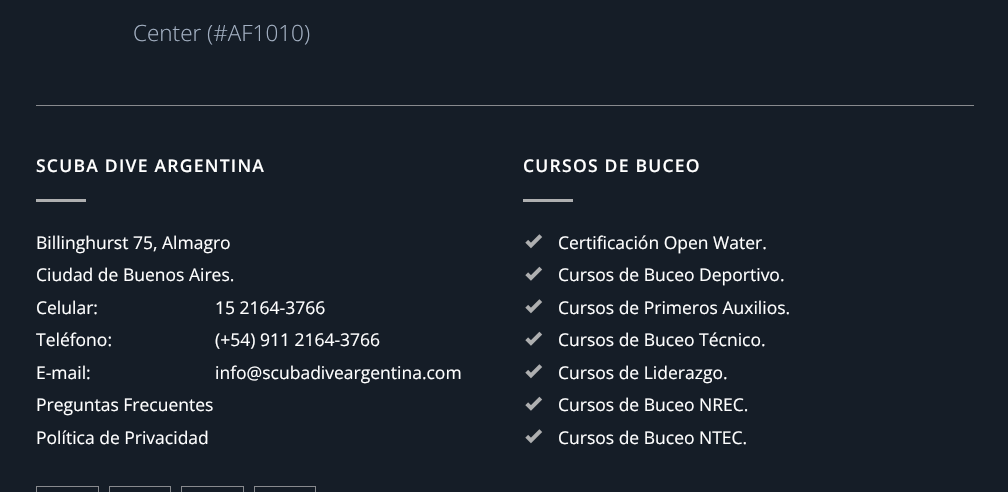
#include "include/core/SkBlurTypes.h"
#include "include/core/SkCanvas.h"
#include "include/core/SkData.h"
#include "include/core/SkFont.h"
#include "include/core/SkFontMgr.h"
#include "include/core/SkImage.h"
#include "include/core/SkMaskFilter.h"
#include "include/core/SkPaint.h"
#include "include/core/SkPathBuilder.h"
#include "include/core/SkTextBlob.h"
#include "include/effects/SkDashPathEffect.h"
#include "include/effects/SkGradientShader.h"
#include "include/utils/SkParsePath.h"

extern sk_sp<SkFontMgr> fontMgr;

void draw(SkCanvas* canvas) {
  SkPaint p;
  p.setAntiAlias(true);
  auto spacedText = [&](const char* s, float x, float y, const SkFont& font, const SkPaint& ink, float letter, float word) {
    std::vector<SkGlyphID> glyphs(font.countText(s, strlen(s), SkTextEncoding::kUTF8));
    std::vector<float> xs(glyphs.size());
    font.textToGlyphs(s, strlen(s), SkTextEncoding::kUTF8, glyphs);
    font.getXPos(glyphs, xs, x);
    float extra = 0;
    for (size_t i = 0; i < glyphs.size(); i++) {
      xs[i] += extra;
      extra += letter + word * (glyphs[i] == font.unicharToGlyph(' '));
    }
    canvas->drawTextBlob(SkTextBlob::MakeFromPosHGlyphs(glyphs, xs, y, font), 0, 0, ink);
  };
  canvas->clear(SkColorSetRGB(21, 29, 39));
  p.setColor(SkColorSetRGB(136, 138, 142));
  canvas->drawRect(SkRect::MakeLTRB(36, 105, 974, 106), p);
  p.setColor(SkColorSetRGB(174, 175, 176));
  canvas->drawRect(SkRect::MakeLTRB(36, 199, 86, 202), p);
  p.setStyle(SkPaint::kStroke_Style);
  p.setStrokeWidth(1);
  p.setColor(SkColorSetRGB(136, 138, 142));
  canvas->drawRect(SkRect::MakeLTRB(36.5f, 486.5f, 98.5f, 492.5f), p);
  canvas->drawRect(SkRect::MakeLTRB(109.5f, 486.5f, 170.5f, 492.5f), p);
  canvas->drawRect(SkRect::MakeLTRB(181.5f, 486.5f, 243.5f, 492.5f), p);
  canvas->drawRect(SkRect::MakeLTRB(254.5f, 486.5f, 315.5f, 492.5f), p);
  p.setStyle(SkPaint::kFill_Style);
  p.setColor(SkColorSetRGB(174, 175, 176));
  canvas->drawRect(SkRect::MakeLTRB(523, 199, 573, 202), p);
  canvas->drawImageRect(SkImages::DeferredFromEncodedData(SkData::MakeFromFileName("images/1.png")), SkRect::MakeLTRB(525, 234, 543, 249), SkSamplingOptions());
  canvas->drawImageRect(SkImages::DeferredFromEncodedData(SkData::MakeFromFileName("images/2.png")), SkRect::MakeLTRB(525, 266, 543, 281), SkSamplingOptions());
  canvas->drawImageRect(SkImages::DeferredFromEncodedData(SkData::MakeFromFileName("images/1.png")), SkRect::MakeLTRB(525, 299, 543, 314), SkSamplingOptions());
  canvas->drawImageRect(SkImages::DeferredFromEncodedData(SkData::MakeFromFileName("images/2.png")), SkRect::MakeLTRB(525, 331, 543, 346), SkSamplingOptions());
  canvas->drawImageRect(SkImages::DeferredFromEncodedData(SkData::MakeFromFileName("images/1.png")), SkRect::MakeLTRB(525, 364, 543, 379), SkSamplingOptions());
  canvas->drawImageRect(SkImages::DeferredFromEncodedData(SkData::MakeFromFileName("images/2.png")), SkRect::MakeLTRB(525, 396, 543, 411), SkSamplingOptions());
  canvas->drawImageRect(SkImages::DeferredFromEncodedData(SkData::MakeFromFileName("images/1.png")), SkRect::MakeLTRB(525, 429, 543, 444), SkSamplingOptions());
  SkFont font1(fontMgr->matchFamilyStyle("Open Sans", SkFontStyle(300, SkFontStyle::kNormal_Width, SkFontStyle::kUpright_Slant)), 22.5f);
  font1.setSubpixel(true);
  p.setColor(SkColorSetRGB(163, 176, 194));
  canvas->drawString("Center (#AF1010)", 133, 41, font1, p);
  SkFont font2(fontMgr->matchFamilyStyle("Open Sans", SkFontStyle(600, SkFontStyle::kNormal_Width, SkFontStyle::kUpright_Slant)), 17.5f);
  font2.setSubpixel(true);
  p.setColor(SK_ColorWHITE);
  spacedText("SCUBA DIVE ARGENTINA", 36, 172, font2, p, 1.25f, 0);
  SkFont font3(fontMgr->matchFamilyStyle("Open Sans", SkFontStyle::Normal()), 17.5f);
  font3.setSubpixel(true);
  canvas->drawString("Billinghurst 75, Almagro", 36, 249, font3, p);
  canvas->drawString("Ciudad de Buenos Aires.", 36, 281, font3, p);
  canvas->drawString("Celular:", 36, 314, font3, p);
  canvas->drawString("15 2164-3766", 215, 314, font3, p);
  canvas->drawString("Teléfono:", 36, 346, font3, p);
  canvas->drawString("(+54) 911 2164-3766", 215, 346, font3, p);
  canvas->drawString("E-mail:", 36, 379, font3, p);
  canvas->drawString("info@scubadiveargentina.com", 215, 379, font3, p);
  canvas->drawString("Preguntas Frecuentes", 36, 411, font3, p);
  canvas->drawString("Política de Privacidad", 36, 444, font3, p);
  spacedText("CURSOS DE BUCEO", 523, 172, font2, p, 1.25f, 0);
  canvas->drawString("Certificación Open Water.", 558, 249, font3, p);
  canvas->drawString("Cursos de Buceo Deportivo.", 558, 281, font3, p);
  canvas->drawString("Cursos de Primeros Auxilios.", 558, 314, font3, p);
  canvas->drawString("Cursos de Buceo Técnico.", 558, 346, font3, p);
  canvas->drawString("Cursos de Liderazgo.", 558, 379, font3, p);
  canvas->drawString("Cursos de Buceo NREC.", 558, 411, font3, p);
  canvas->drawString("Cursos de Buceo NTEC.", 558, 444, font3, p);
}
